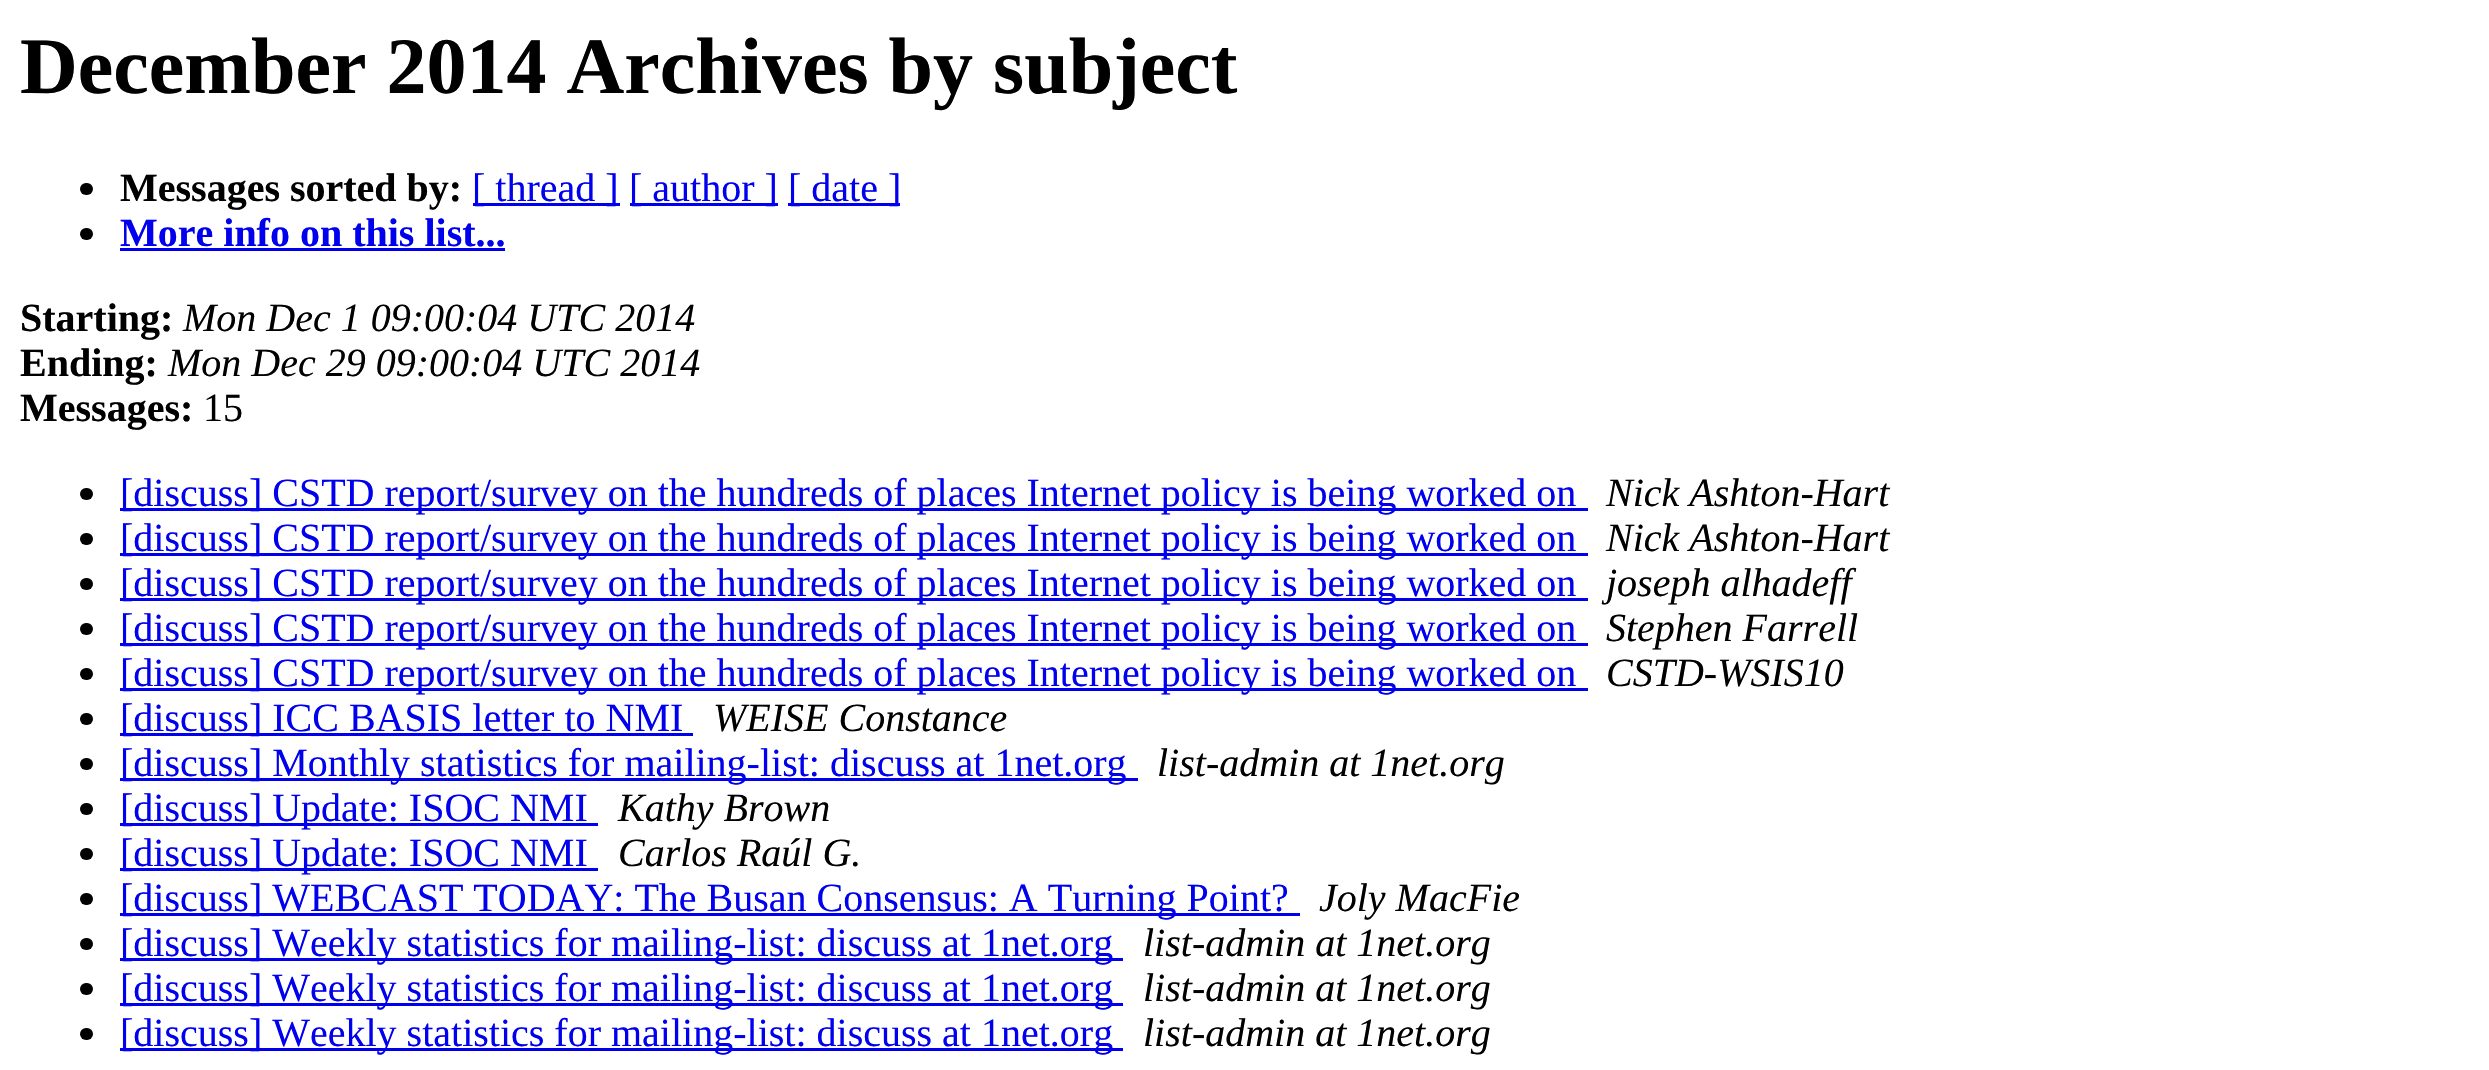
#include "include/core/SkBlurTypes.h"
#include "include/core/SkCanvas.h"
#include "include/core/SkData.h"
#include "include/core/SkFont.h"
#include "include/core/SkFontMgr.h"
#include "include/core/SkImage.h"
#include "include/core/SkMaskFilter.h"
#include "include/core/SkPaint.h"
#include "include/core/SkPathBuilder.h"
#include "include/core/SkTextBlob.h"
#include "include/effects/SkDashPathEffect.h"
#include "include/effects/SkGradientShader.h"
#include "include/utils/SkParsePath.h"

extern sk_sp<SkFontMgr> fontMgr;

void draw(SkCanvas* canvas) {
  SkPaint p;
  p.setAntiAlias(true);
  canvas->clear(SK_ColorWHITE);
  p.setColor(SK_ColorBLACK);
  canvas->drawRoundRect(SkRect::MakeLTRB(80, 183, 93, 195), 6, 6, p);
  p.setColor(SkColorSetRGB(0, 0, 238));
  canvas->drawRect(SkRect::MakeLTRB(473, 203, 620, 206), p);
  canvas->drawRect(SkRect::MakeLTRB(630, 203, 778, 206), p);
  canvas->drawRect(SkRect::MakeLTRB(788, 203, 900, 206), p);
  p.setColor(SK_ColorBLACK);
  canvas->drawRoundRect(SkRect::MakeLTRB(80, 228, 93, 240), 6, 6, p);
  p.setColor(SkColorSetRGB(0, 0, 238));
  canvas->drawRect(SkRect::MakeLTRB(120, 248, 505, 251), p);
  p.setColor(SK_ColorBLACK);
  canvas->drawRoundRect(SkRect::MakeLTRB(80, 488, 93, 500), 6, 6, p);
  p.setColor(SkColorSetRGB(0, 0, 238));
  canvas->drawRect(SkRect::MakeLTRB(120, 508, 1588, 511), p);
  p.setColor(SK_ColorBLACK);
  canvas->drawRoundRect(SkRect::MakeLTRB(80, 533, 93, 545), 6, 6, p);
  p.setColor(SkColorSetRGB(0, 0, 238));
  canvas->drawRect(SkRect::MakeLTRB(120, 553, 1588, 556), p);
  p.setColor(SK_ColorBLACK);
  canvas->drawRoundRect(SkRect::MakeLTRB(80, 578, 93, 590), 6, 6, p);
  p.setColor(SkColorSetRGB(0, 0, 238));
  canvas->drawRect(SkRect::MakeLTRB(120, 598, 1588, 601), p);
  p.setColor(SK_ColorBLACK);
  canvas->drawRoundRect(SkRect::MakeLTRB(80, 623, 93, 635), 6, 6, p);
  p.setColor(SkColorSetRGB(0, 0, 238));
  canvas->drawRect(SkRect::MakeLTRB(120, 643, 1588, 646), p);
  p.setColor(SK_ColorBLACK);
  canvas->drawRoundRect(SkRect::MakeLTRB(80, 668, 93, 680), 6, 6, p);
  p.setColor(SkColorSetRGB(0, 0, 238));
  canvas->drawRect(SkRect::MakeLTRB(120, 688, 1588, 691), p);
  p.setColor(SK_ColorBLACK);
  canvas->drawRoundRect(SkRect::MakeLTRB(80, 713, 93, 725), 6, 6, p);
  p.setColor(SkColorSetRGB(0, 0, 238));
  canvas->drawRect(SkRect::MakeLTRB(120, 733, 693, 736), p);
  p.setColor(SK_ColorBLACK);
  canvas->drawRoundRect(SkRect::MakeLTRB(80, 758, 93, 770), 6, 6, p);
  p.setColor(SkColorSetRGB(0, 0, 238));
  canvas->drawRect(SkRect::MakeLTRB(120, 778, 1138, 781), p);
  p.setColor(SK_ColorBLACK);
  canvas->drawRoundRect(SkRect::MakeLTRB(80, 803, 93, 815), 6, 6, p);
  p.setColor(SkColorSetRGB(0, 0, 238));
  canvas->drawRect(SkRect::MakeLTRB(120, 823, 598, 826), p);
  p.setColor(SK_ColorBLACK);
  canvas->drawRoundRect(SkRect::MakeLTRB(80, 848, 93, 860), 6, 6, p);
  p.setColor(SkColorSetRGB(0, 0, 238));
  canvas->drawRect(SkRect::MakeLTRB(120, 868, 598, 871), p);
  p.setColor(SK_ColorBLACK);
  canvas->drawRoundRect(SkRect::MakeLTRB(80, 893, 93, 905), 6, 6, p);
  p.setColor(SkColorSetRGB(0, 0, 238));
  canvas->drawRect(SkRect::MakeLTRB(120, 913, 1300, 916), p);
  p.setColor(SK_ColorBLACK);
  canvas->drawRoundRect(SkRect::MakeLTRB(80, 938, 93, 950), 6, 6, p);
  p.setColor(SkColorSetRGB(0, 0, 238));
  canvas->drawRect(SkRect::MakeLTRB(120, 958, 1123, 961), p);
  p.setColor(SK_ColorBLACK);
  canvas->drawRoundRect(SkRect::MakeLTRB(80, 983, 93, 995), 6, 6, p);
  p.setColor(SkColorSetRGB(0, 0, 238));
  canvas->drawRect(SkRect::MakeLTRB(120, 1003, 1123, 1006), p);
  p.setColor(SK_ColorBLACK);
  canvas->drawRoundRect(SkRect::MakeLTRB(80, 1028, 93, 1040), 6, 6, p);
  p.setColor(SkColorSetRGB(0, 0, 238));
  canvas->drawRect(SkRect::MakeLTRB(120, 1048, 1123, 1051), p);
  SkFont font1(fontMgr->matchFamilyStyle("Liberation Serif", SkFontStyle::Bold()), 80);
  font1.setSubpixel(true);
  p.setColor(SK_ColorBLACK);
  canvas->drawString("December 2014 Archives by subject", 20, 93, font1, p);
  SkFont font2(fontMgr->matchFamilyStyle("Liberation Serif", SkFontStyle::Bold()), 40);
  font2.setSubpixel(true);
  canvas->drawString("Messages sorted by:", 120, 201, font2, p);
  SkFont font3(fontMgr->matchFamilyStyle("Liberation Serif", SkFontStyle::Normal()), 40);
  font3.setSubpixel(true);
  p.setColor(SkColorSetRGB(0, 0, 238));
  canvas->drawString("[ thread ]", 472, 201, font3, p);
  canvas->drawString("[ author ]", 629, 201, font3, p);
  canvas->drawString("[ date ]", 788, 201, font3, p);
  canvas->drawString("More info on this list...", 120, 246, font2, p);
  p.setColor(SK_ColorBLACK);
  canvas->drawString("Starting:", 20, 331, font2, p);
  SkFont font4(fontMgr->matchFamilyStyle("Liberation Serif", SkFontStyle::Italic()), 40);
  font4.setSubpixel(true);
  canvas->drawString("Mon Dec 1 09:00:04 UTC 2014", 183, 331, font4, p);
  canvas->drawString("Ending:", 20, 376, font2, p);
  canvas->drawString("Mon Dec 29 09:00:04 UTC 2014", 168, 376, font4, p);
  canvas->drawString("Messages:", 20, 421, font2, p);
  canvas->drawString("15", 203, 421, font3, p);
  p.setColor(SkColorSetRGB(0, 0, 238));
  canvas->drawString("[discuss] CSTD report/survey on the hundreds of places Internet policy is being worked on", 120, 506, font3, p);
  p.setColor(SK_ColorBLACK);
  canvas->drawString("Nick Ashton-Hart", 1606, 506, font4, p);
  p.setColor(SkColorSetRGB(0, 0, 238));
  canvas->drawString("[discuss] CSTD report/survey on the hundreds of places Internet policy is being worked on", 120, 551, font3, p);
  p.setColor(SK_ColorBLACK);
  canvas->drawString("Nick Ashton-Hart", 1606, 551, font4, p);
  p.setColor(SkColorSetRGB(0, 0, 238));
  canvas->drawString("[discuss] CSTD report/survey on the hundreds of places Internet policy is being worked on", 120, 596, font3, p);
  p.setColor(SK_ColorBLACK);
  canvas->drawString("joseph alhadeff", 1606, 596, font4, p);
  p.setColor(SkColorSetRGB(0, 0, 238));
  canvas->drawString("[discuss] CSTD report/survey on the hundreds of places Internet policy is being worked on", 120, 641, font3, p);
  p.setColor(SK_ColorBLACK);
  canvas->drawString("Stephen Farrell", 1606, 641, font4, p);
  p.setColor(SkColorSetRGB(0, 0, 238));
  canvas->drawString("[discuss] CSTD report/survey on the hundreds of places Internet policy is being worked on", 120, 686, font3, p);
  p.setColor(SK_ColorBLACK);
  canvas->drawString("CSTD-WSIS10", 1606, 686, font4, p);
  p.setColor(SkColorSetRGB(0, 0, 238));
  canvas->drawString("[discuss] ICC BASIS letter to NMI", 120, 731, font3, p);
  p.setColor(SK_ColorBLACK);
  canvas->drawString("WEISE Constance", 713, 731, font4, p);
  p.setColor(SkColorSetRGB(0, 0, 238));
  canvas->drawString("[discuss] Monthly statistics for mailing-list: discuss at 1net.org", 120, 776, font3, p);
  p.setColor(SK_ColorBLACK);
  canvas->drawString("list-admin at 1net.org", 1157, 776, font4, p);
  p.setColor(SkColorSetRGB(0, 0, 238));
  canvas->drawString("[discuss] Update: ISOC NMI", 120, 821, font3, p);
  p.setColor(SK_ColorBLACK);
  canvas->drawString("Kathy Brown", 618, 821, font4, p);
  p.setColor(SkColorSetRGB(0, 0, 238));
  canvas->drawString("[discuss] Update: ISOC NMI", 120, 866, font3, p);
  p.setColor(SK_ColorBLACK);
  canvas->drawString("Carlos Raúl G.", 618, 866, font4, p);
  p.setColor(SkColorSetRGB(0, 0, 238));
  canvas->drawString("[discuss] WEBCAST TODAY: The Busan Consensus: A Turning Point?", 120, 911, font3, p);
  p.setColor(SK_ColorBLACK);
  canvas->drawString("Joly MacFie", 1319, 911, font4, p);
  p.setColor(SkColorSetRGB(0, 0, 238));
  canvas->drawString("[discuss] Weekly statistics for mailing-list: discuss at 1net.org", 120, 956, font3, p);
  p.setColor(SK_ColorBLACK);
  canvas->drawString("list-admin at 1net.org", 1143, 956, font4, p);
  p.setColor(SkColorSetRGB(0, 0, 238));
  canvas->drawString("[discuss] Weekly statistics for mailing-list: discuss at 1net.org", 120, 1001, font3, p);
  p.setColor(SK_ColorBLACK);
  canvas->drawString("list-admin at 1net.org", 1143, 1001, font4, p);
  p.setColor(SkColorSetRGB(0, 0, 238));
  canvas->drawString("[discuss] Weekly statistics for mailing-list: discuss at 1net.org", 120, 1046, font3, p);
  p.setColor(SK_ColorBLACK);
  canvas->drawString("list-admin at 1net.org", 1143, 1046, font4, p);
}
